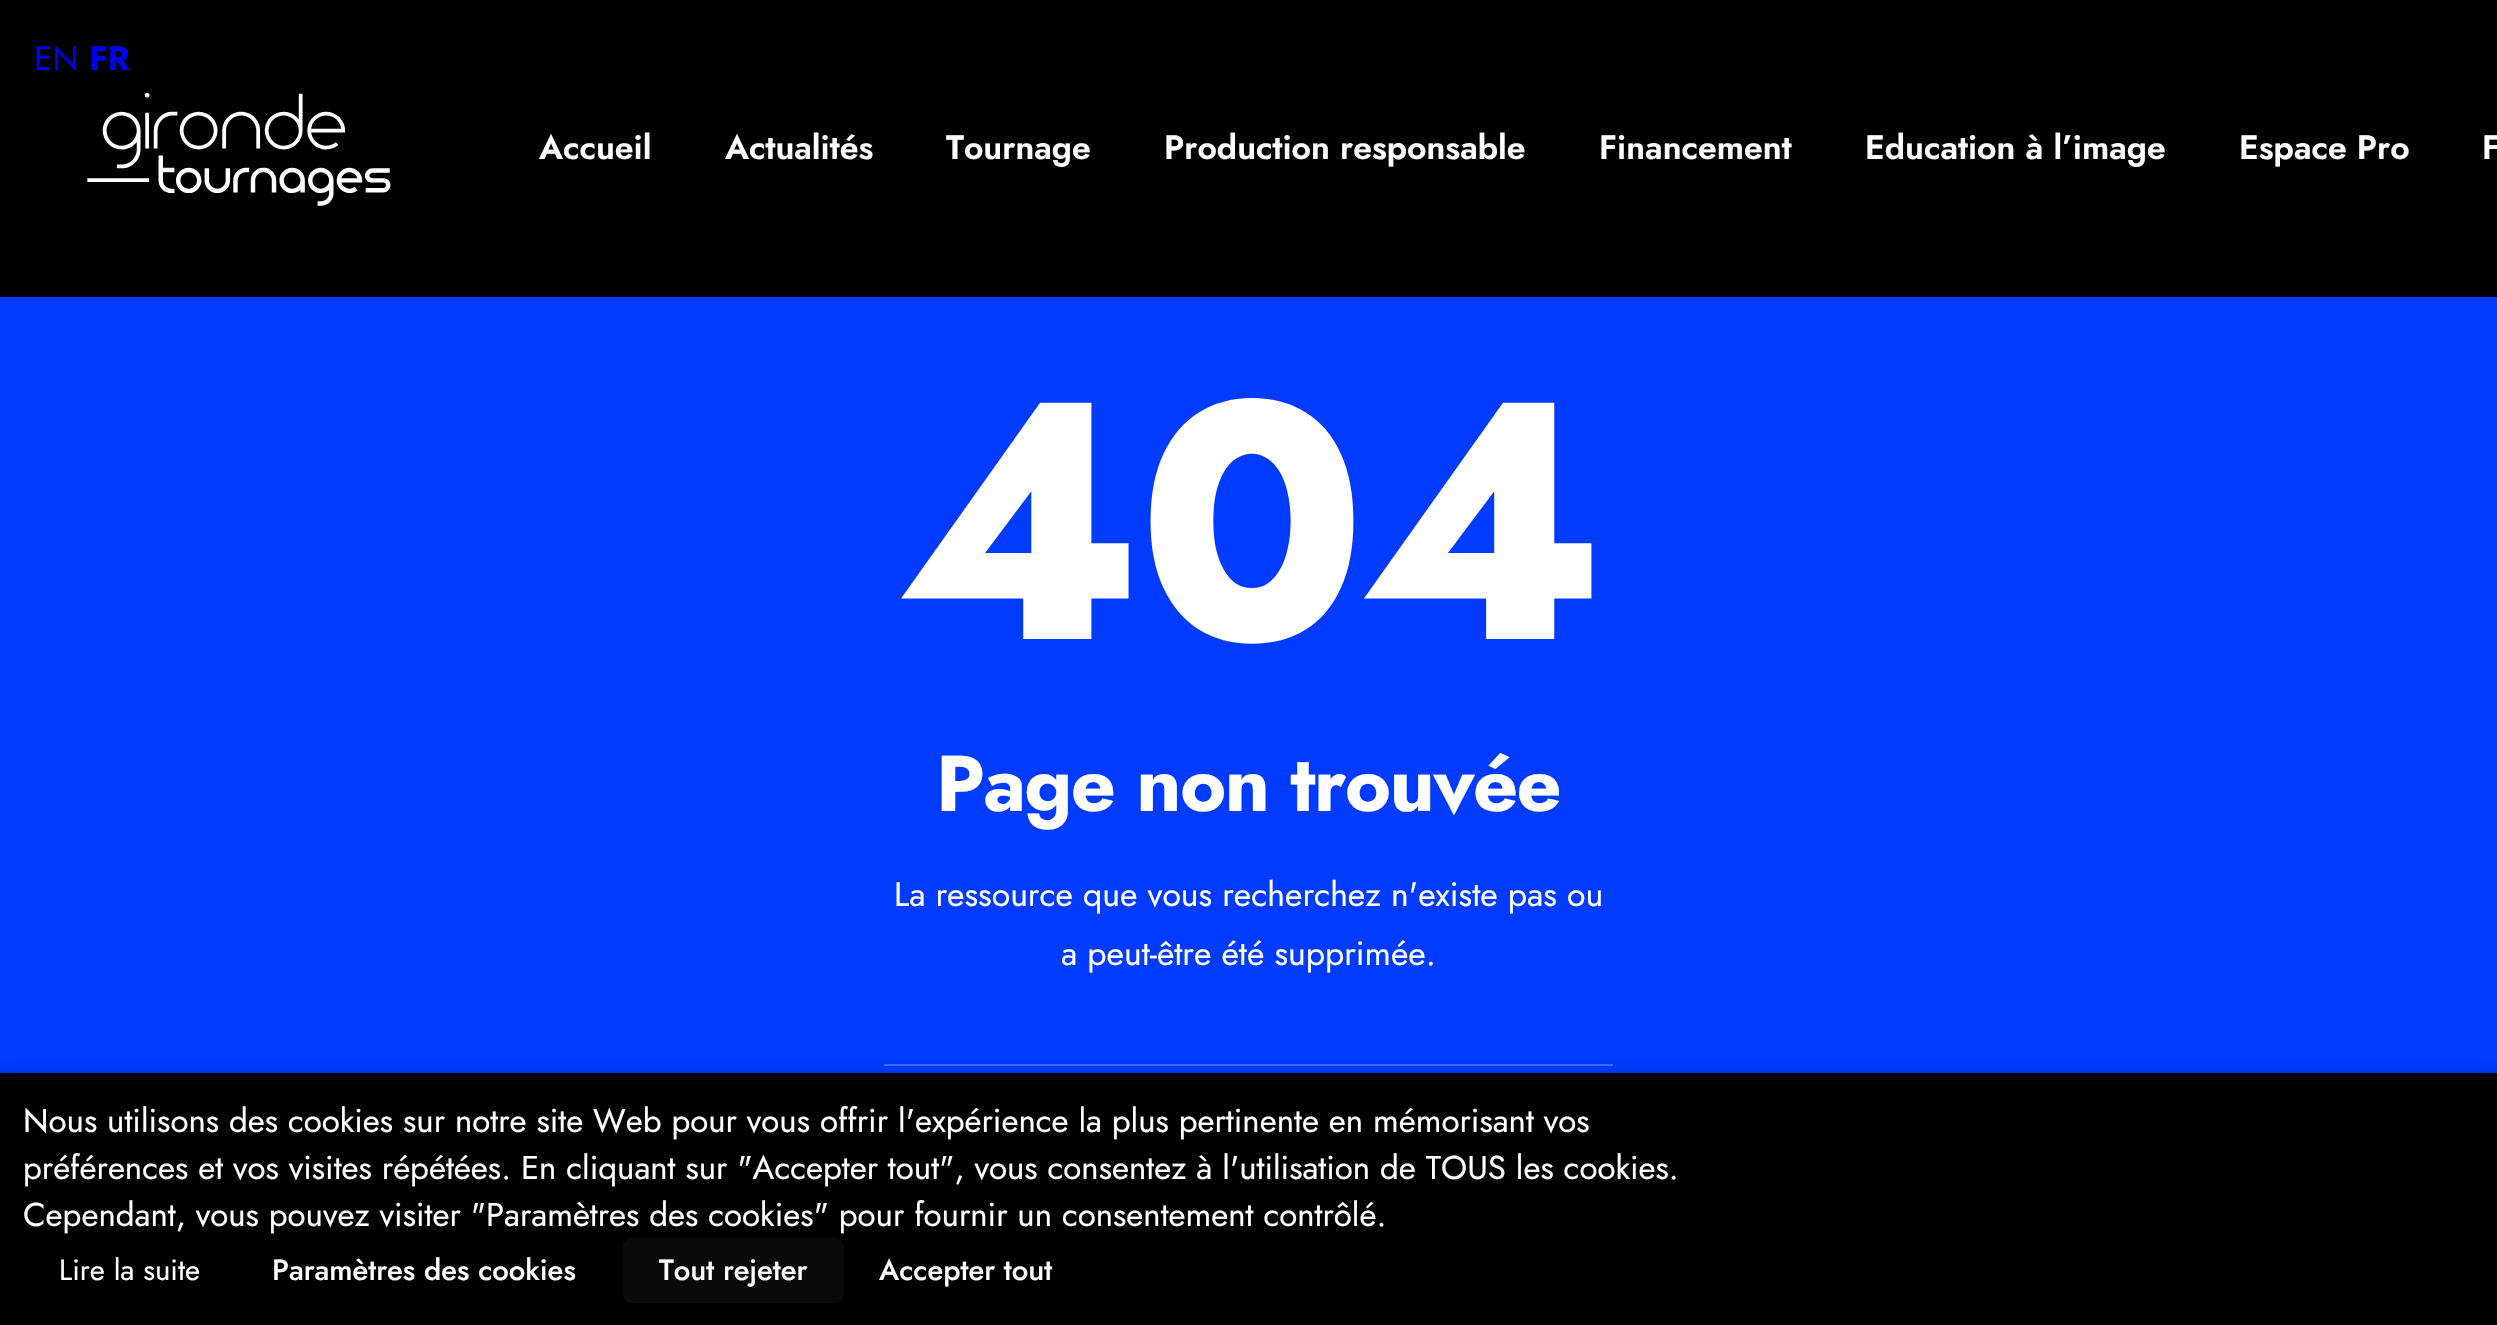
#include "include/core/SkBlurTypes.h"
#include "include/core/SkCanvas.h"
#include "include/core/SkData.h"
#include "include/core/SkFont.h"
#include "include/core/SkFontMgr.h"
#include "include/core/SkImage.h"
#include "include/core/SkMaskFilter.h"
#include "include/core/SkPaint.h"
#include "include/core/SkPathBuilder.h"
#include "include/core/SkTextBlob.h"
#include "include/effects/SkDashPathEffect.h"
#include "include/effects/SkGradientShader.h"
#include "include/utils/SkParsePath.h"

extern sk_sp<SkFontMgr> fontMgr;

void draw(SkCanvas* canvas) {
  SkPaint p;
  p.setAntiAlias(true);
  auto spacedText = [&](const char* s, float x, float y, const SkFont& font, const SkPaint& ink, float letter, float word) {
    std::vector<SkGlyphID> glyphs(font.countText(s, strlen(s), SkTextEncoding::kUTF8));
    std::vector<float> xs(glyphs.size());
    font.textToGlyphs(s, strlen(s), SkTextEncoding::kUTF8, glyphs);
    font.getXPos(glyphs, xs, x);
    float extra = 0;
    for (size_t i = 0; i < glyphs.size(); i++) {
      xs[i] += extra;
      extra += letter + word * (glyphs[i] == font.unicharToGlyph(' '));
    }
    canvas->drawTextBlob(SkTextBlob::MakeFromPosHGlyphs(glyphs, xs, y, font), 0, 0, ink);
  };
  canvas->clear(SkColorSetRGB(0, 59, 255));
  p.setColor(SK_ColorBLACK);
  canvas->drawRect(SkRect::MakeLTRB(0, 0, 2497, 297), p);
  canvas->drawImageRect(SkImages::DeferredFromEncodedData(SkData::MakeFromFileName("images/1.png")), SkRect::MakeLTRB(87, 93, 391, 206), SkSamplingOptions());
  p.setColor(SkColorSetRGB(64, 108, 255));
  canvas->drawRect(SkRect::MakeLTRB(884, 1064, 1613, 1066), p);
  p.setColor(SkColorSetARGB(128, 0, 0, 0));
  p.setMaskFilter(SkMaskFilter::MakeBlur(kNormal_SkBlurStyle, 11));
  canvas->drawRect(SkRect::MakeLTRB(0, 1085, 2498, 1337), p);
  p.setMaskFilter(nullptr);
  p.setColor(SK_ColorBLACK);
  canvas->drawRect(SkRect::MakeLTRB(0, 1073, 2497, 1325), p);
  p.setColor(SkColorSetRGB(10, 10, 10));
  canvas->drawRoundRect(SkRect::MakeLTRB(623, 1238, 844, 1303), 9, 9, p);
  SkFont font1(fontMgr->matchFamilyStyle("Jost", SkFontStyle::Normal()), 33.75f);
  font1.setSubpixel(true);
  p.setColor(SkColorSetRGB(0, 0, 238));
  canvas->drawString("EN", 34, 70, font1, p);
  SkFont font2(fontMgr->matchFamilyStyle("Jost", SkFontStyle::Bold()), 33.75f);
  font2.setSubpixel(true);
  canvas->drawString("FR", 89, 70, font2, p);
  SkFont font3(fontMgr->matchFamilyStyle("Jost", SkFontStyle(600, SkFontStyle::kNormal_Width, SkFontStyle::kUpright_Slant)), 33.75f);
  font3.setSubpixel(true);
  p.setColor(SK_ColorWHITE);
  canvas->drawString("Accueil", 539, 159, font3, p);
  canvas->drawString("Actualités", 725, 159, font3, p);
  canvas->drawString("Tournage", 946, 159, font3, p);
  canvas->drawString("Production responsable", 1164, 159, font3, p);
  canvas->drawString("Financement", 1599, 159, font3, p);
  canvas->drawString("Education à l’image", 1865, 159, font3, p);
  canvas->drawString("Espace Pro", 2239, 159, font3, p);
  canvas->drawString("F", 2482, 159, font3, p);
  SkFont font4(fontMgr->matchFamilyStyle("Jost", SkFontStyle(800, SkFontStyle::kNormal_Width, SkFontStyle::kUpright_Slant)), 337.5f);
  font4.setSubpixel(true);
  spacedText("404", 897, 639, font4, p, -7, 0);
  SkFont font5(fontMgr->matchFamilyStyle("Jost", SkFontStyle::Bold()), 78.75f);
  font5.setSubpixel(true);
  spacedText("Page non trouvée", 936, 811, font5, p, -1.6f, 0);
  canvas->drawString("La ressource que vous recherchez n'existe pas ou", 894, 906, font1, p);
  canvas->drawString("a peut-être été supprimée.", 1061, 965, font1, p);
  SkFont font6(fontMgr->matchFamilyStyle("Jost", SkFontStyle::Normal()), 33);
  font6.setSubpixel(true);
  canvas->drawString("Nous utilisons des cookies sur notre site Web pour vous offrir l'expérience la plus pertinente en mémorisant vos", 23, 1132, font6, p);
  canvas->drawString("préférences et vos visites répétées. En cliquant sur \"Accepter tout\", vous consentez à l'utilisation de TOUS les cookies.", 23, 1179, font6, p);
  canvas->drawString("Cependant, vous pouvez visiter \"Paramètres des cookies\" pour fournir un consentement contrôlé.", 23, 1226, font6, p);
  SkFont font7(fontMgr->matchFamilyStyle("Jost", SkFontStyle::Normal()), 29.25f);
  font7.setSubpixel(true);
  canvas->drawString("Lire la suite", 59, 1280, font7, p);
  SkFont font8(fontMgr->matchFamilyStyle("Jost", SkFontStyle(500, SkFontStyle::kNormal_Width, SkFontStyle::kUpright_Slant)), 29.25f);
  font8.setSubpixel(true);
  canvas->drawString("Paramètres des cookies", 272, 1280, font8, p);
  canvas->drawString("Tout rejeter", 659, 1280, font8, p);
  canvas->drawString("Accepter tout", 879, 1280, font8, p);
}
